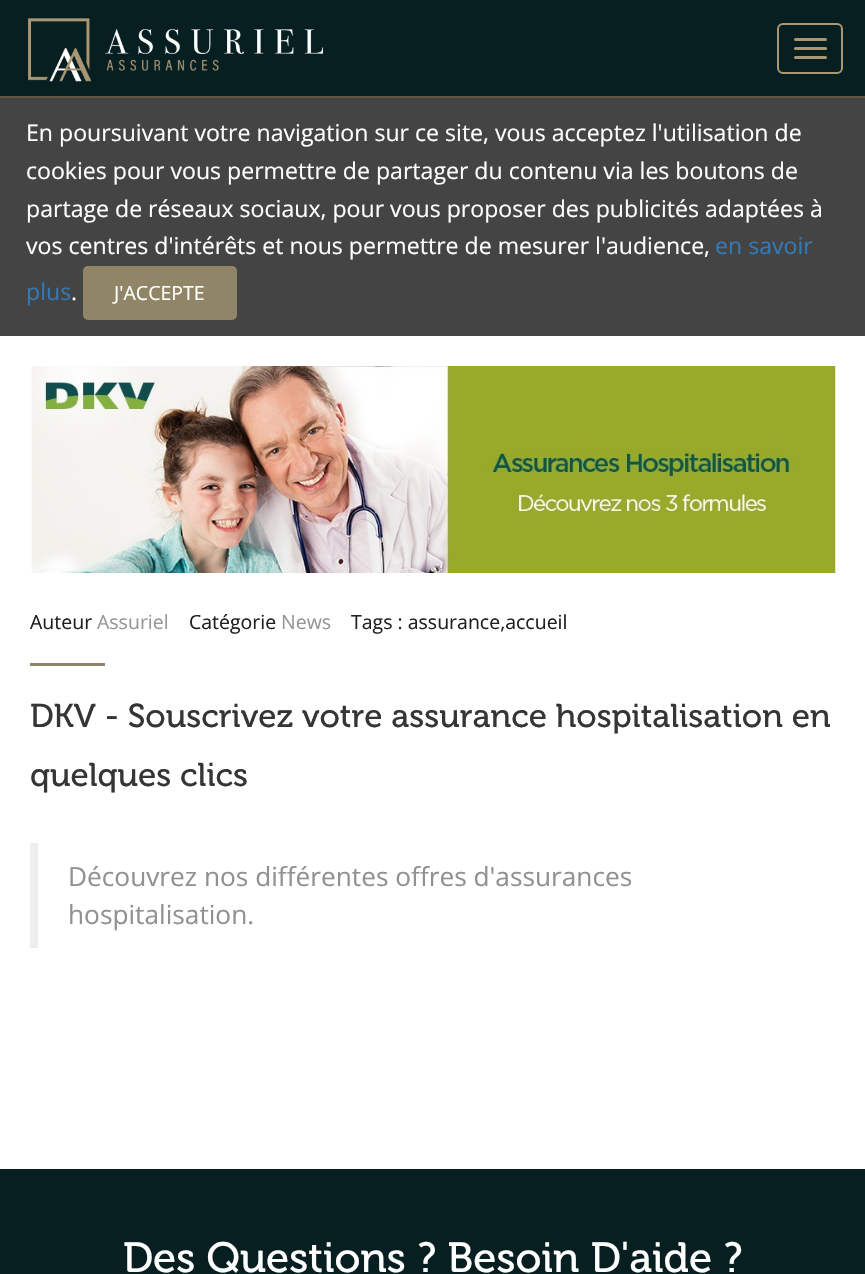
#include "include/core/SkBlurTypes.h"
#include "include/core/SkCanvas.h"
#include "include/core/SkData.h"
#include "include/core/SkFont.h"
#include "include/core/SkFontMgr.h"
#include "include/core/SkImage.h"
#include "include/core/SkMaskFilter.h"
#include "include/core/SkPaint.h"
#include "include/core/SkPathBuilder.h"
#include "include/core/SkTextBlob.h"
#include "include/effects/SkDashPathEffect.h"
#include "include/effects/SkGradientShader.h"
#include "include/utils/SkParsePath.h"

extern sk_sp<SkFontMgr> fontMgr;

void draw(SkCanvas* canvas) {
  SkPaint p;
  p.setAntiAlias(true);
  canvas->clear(SK_ColorWHITE);
  p.setColor(SkColorSetRGB(68, 68, 68));
  canvas->drawRect(SkRect::MakeLTRB(0, 98, 865, 336), p);
  p.setColor(SkColorSetRGB(144, 133, 103));
  canvas->drawRoundRect(SkRect::MakeLTRB(84, 267, 236, 319), 4, 4, p);
  p.setStyle(SkPaint::kStroke_Style);
  p.setStrokeWidth(2);
  canvas->drawRoundRect(SkRect::MakeLTRB(84, 267, 236, 319), 4, 4, p);
  p.setStyle(SkPaint::kFill_Style);
  p.setColor(SkColorSetRGB(8, 31, 33));
  canvas->drawRect(SkRect::MakeLTRB(0, 0, 865, 96), p);
  p.setColor(SkColorSetRGB(96, 86, 67));
  canvas->drawRect(SkRect::MakeLTRB(0, 96, 865, 98), p);
  canvas->drawImageRect(SkImages::DeferredFromEncodedData(SkData::MakeFromFileName("images/1.png")), SkRect::MakeLTRB(28, 18, 324, 82), SkSamplingOptions());
  p.setStyle(SkPaint::kStroke_Style);
  p.setColor(SkColorSetRGB(169, 151, 116));
  canvas->drawRoundRect(SkRect::MakeLTRB(778, 24, 842, 73), 5, 5, p);
  p.setStyle(SkPaint::kFill_Style);
  canvas->drawRoundRect(SkRect::MakeLTRB(794, 38, 827, 41), 1.5f, 1.5f, p);
  canvas->drawRoundRect(SkRect::MakeLTRB(794, 47, 827, 50), 1.5f, 1.5f, p);
  canvas->drawRoundRect(SkRect::MakeLTRB(794, 56, 827, 59), 1.5f, 1.5f, p);
  canvas->drawImageRect(SkImages::DeferredFromEncodedData(SkData::MakeFromFileName("images/2.png")), SkRect::MakeLTRB(31, 366, 836, 573), SkSamplingOptions());
  p.setColor(SkColorSetRGB(144, 133, 103));
  canvas->drawRect(SkRect::MakeLTRB(30, 663, 105, 666), p);
  p.setColor(SkColorSetRGB(238, 238, 238));
  canvas->drawRect(SkRect::MakeLTRB(30, 843, 38, 948), p);
  p.setColor(SkColorSetRGB(8, 31, 33));
  canvas->drawRect(SkRect::MakeLTRB(0, 1169, 865, 1274), p);
  SkFont font1(fontMgr->matchFamilyStyle("Open Sans", SkFontStyle::Normal()), 23.1f);
  font1.setSubpixel(true);
  p.setColor(SK_ColorWHITE);
  canvas->drawString("En poursuivant votre navigation sur ce site, vous acceptez l'utilisation de", 26, 141, font1, p);
  canvas->drawString("cookies pour vous permettre de partager du contenu via les boutons de", 26, 179, font1, p);
  canvas->drawString("partage de réseaux sociaux, pour vous proposer des publicités adaptées à", 26, 217, font1, p);
  canvas->drawString("vos centres d'intérêts et nous permettre de mesurer l'audience,", 26, 254, font1, p);
  p.setColor(SkColorSetRGB(51, 122, 183));
  canvas->drawString("en savoir", 715, 254, font1, p);
  canvas->drawString("plus", 26, 300, font1, p);
  p.setColor(SK_ColorWHITE);
  canvas->drawString(".", 71, 300, font1, p);
  SkFont font2(fontMgr->matchFamilyStyle("Open Sans", SkFontStyle::Normal()), 19.5f);
  font2.setSubpixel(true);
  canvas->drawString("J'ACCEPTE", 114, 300, font2, p);
  p.setColor(SkColorSetRGB(32, 32, 32));
  canvas->drawString("Auteur", 30, 629, font2, p);
  p.setColor(SkColorSetRGB(151, 151, 151));
  canvas->drawString("Assuriel", 97, 629, font2, p);
  p.setColor(SkColorSetRGB(32, 32, 32));
  canvas->drawString("Catégorie", 189, 629, font2, p);
  p.setColor(SkColorSetRGB(151, 151, 151));
  canvas->drawString("News", 281, 629, font2, p);
  p.setColor(SkColorSetRGB(32, 32, 32));
  canvas->drawString("Tags : assurance,accueil", 351, 629, font2, p);
  SkFont font3(fontMgr->matchFamilyStyle("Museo", SkFontStyle::Normal()), 33);
  font3.setSubpixel(true);
  p.setColor(SkColorSetRGB(53, 53, 53));
  canvas->drawString("DKV - Souscrivez votre assurance hospitalisation en", 30, 727, font3, p);
  canvas->drawString("quelques clics", 30, 786, font3, p);
  SkFont font4(fontMgr->matchFamilyStyle("Open Sans", SkFontStyle::Normal()), 26.25f);
  font4.setSubpixel(true);
  p.setColor(SkColorSetRGB(145, 145, 145));
  canvas->drawString("Découvrez nos différentes offres d'assurances", 68, 886, font4, p);
  canvas->drawString("hospitalisation.", 68, 924, font4, p);
  SkFont font5(fontMgr->matchFamilyStyle("Museo", SkFontStyle::Normal()), 42);
  font5.setSubpixel(true);
  p.setColor(SK_ColorWHITE);
  canvas->drawString("Des Questions ? Besoin D'aide ?", 123, 1272, font5, p);
}
